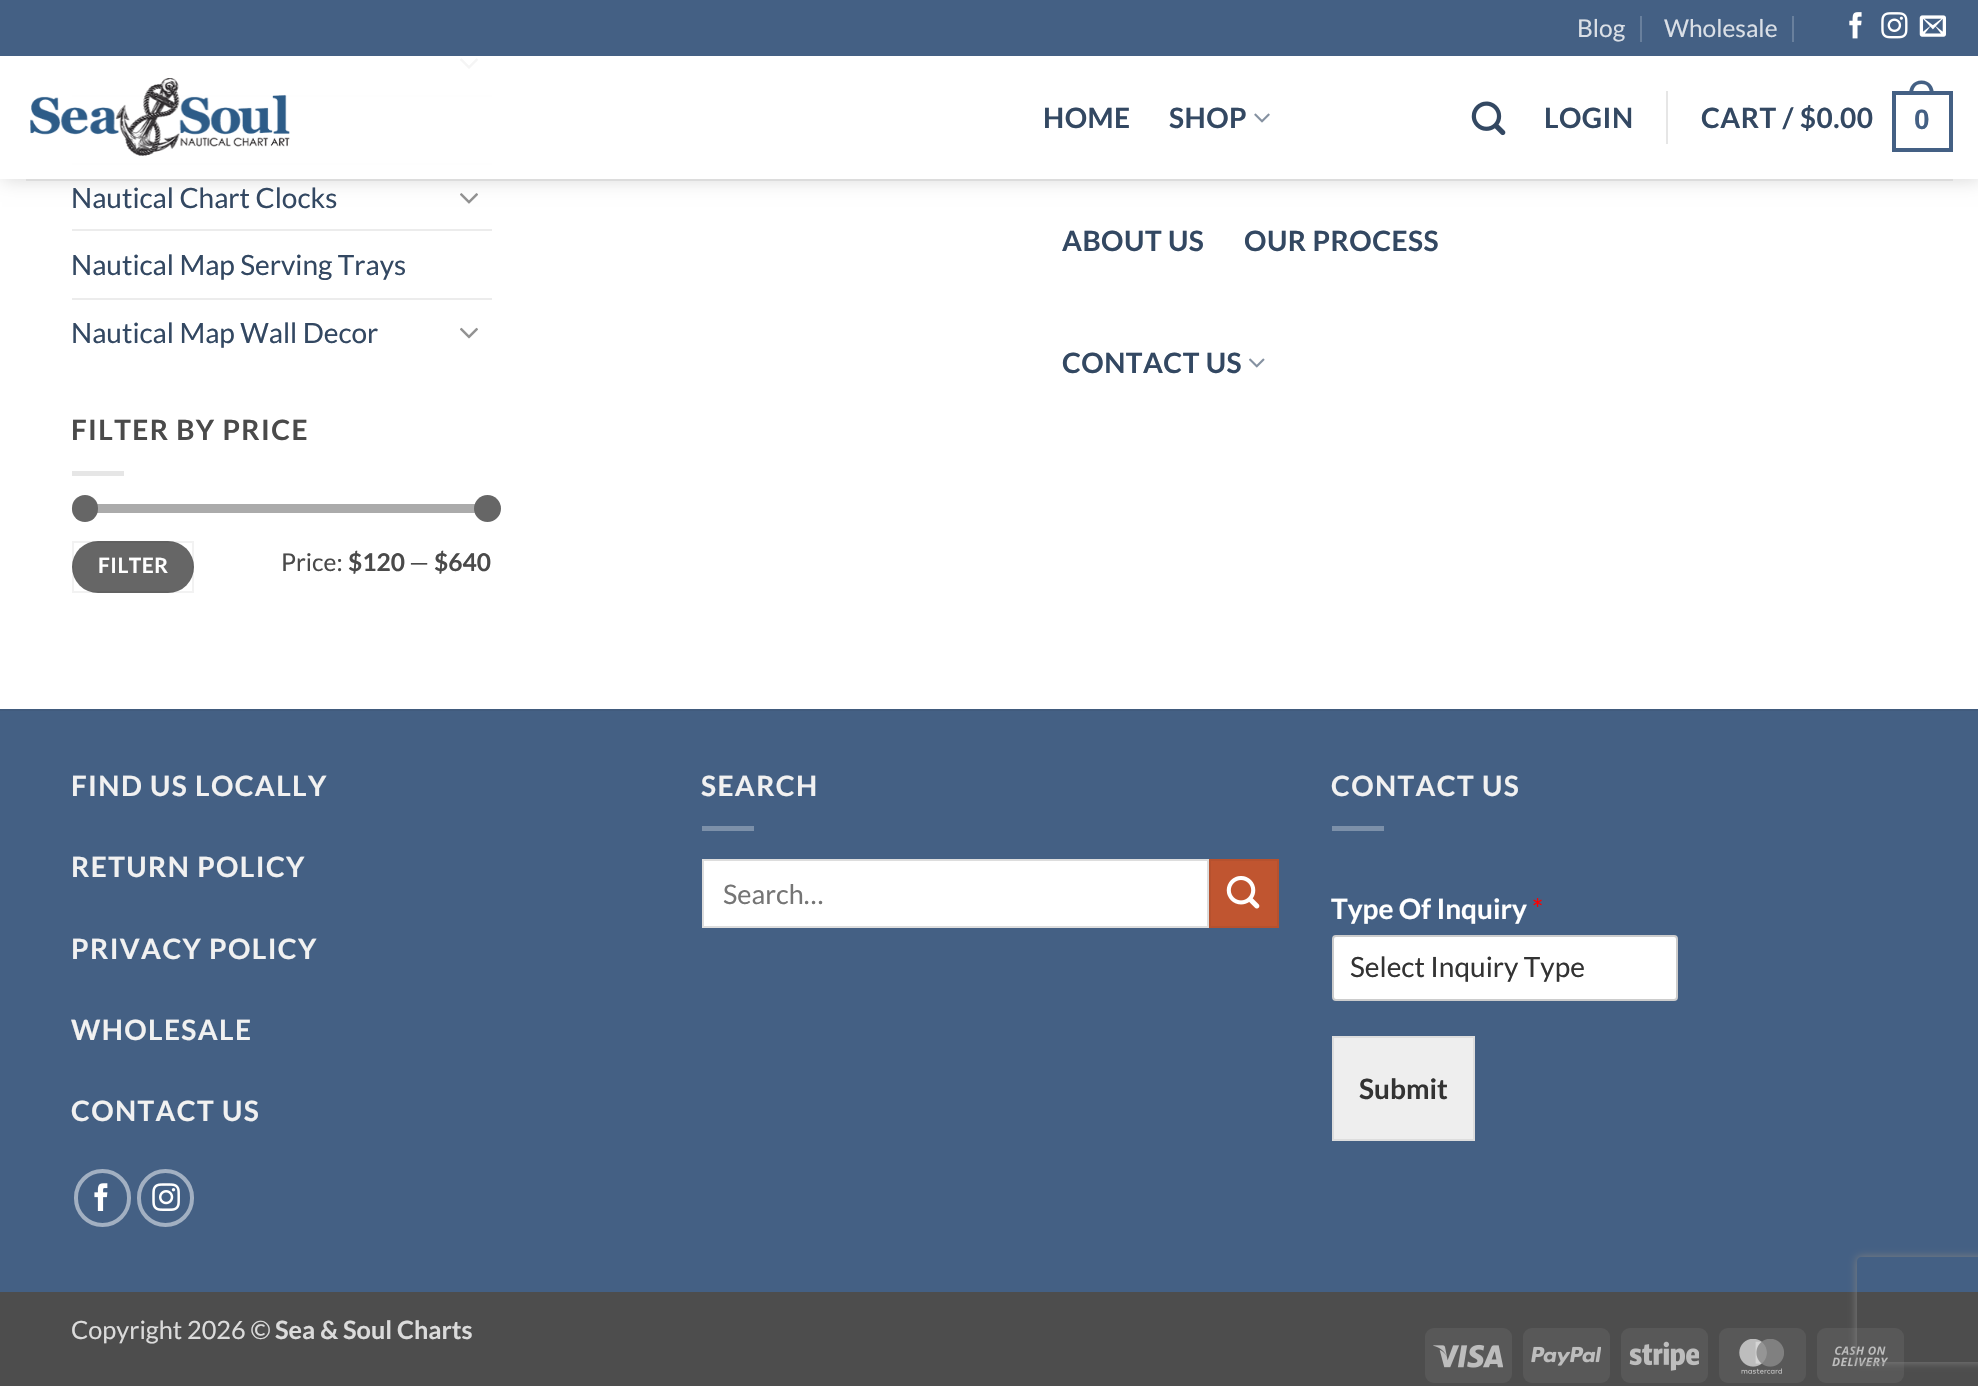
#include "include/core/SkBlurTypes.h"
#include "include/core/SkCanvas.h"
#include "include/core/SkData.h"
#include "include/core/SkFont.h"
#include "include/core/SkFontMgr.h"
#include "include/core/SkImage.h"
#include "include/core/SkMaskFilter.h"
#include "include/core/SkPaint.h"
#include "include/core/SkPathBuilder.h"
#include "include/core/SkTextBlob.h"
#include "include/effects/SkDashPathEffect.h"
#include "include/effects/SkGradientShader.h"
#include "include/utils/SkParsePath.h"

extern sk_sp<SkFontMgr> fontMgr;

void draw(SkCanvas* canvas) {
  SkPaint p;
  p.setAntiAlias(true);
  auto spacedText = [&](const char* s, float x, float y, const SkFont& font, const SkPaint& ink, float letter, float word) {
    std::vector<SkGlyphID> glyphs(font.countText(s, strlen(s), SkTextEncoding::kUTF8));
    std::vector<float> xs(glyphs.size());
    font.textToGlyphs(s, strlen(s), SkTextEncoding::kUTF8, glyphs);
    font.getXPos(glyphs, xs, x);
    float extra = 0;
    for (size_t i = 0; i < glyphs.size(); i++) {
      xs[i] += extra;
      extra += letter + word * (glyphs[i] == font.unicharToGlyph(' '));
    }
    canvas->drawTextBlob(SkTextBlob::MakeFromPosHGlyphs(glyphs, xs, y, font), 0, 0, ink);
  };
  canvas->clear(SK_ColorWHITE);
  canvas->drawImageRect(SkImages::DeferredFromEncodedData(SkData::MakeFromFileName("images/1.png")), SkRect::MakeLTRB(460, 58, 478, 69), SkSamplingOptions());
  p.setColor(SkColorSetRGB(236, 236, 236));
  canvas->drawRect(SkRect::MakeLTRB(72, 95, 492, 97), p);
  canvas->drawRect(SkRect::MakeLTRB(72, 163, 492, 165), p);
  canvas->drawImageRect(SkImages::DeferredFromEncodedData(SkData::MakeFromFileName("images/2.png")), SkRect::MakeLTRB(460, 193, 478, 204), SkSamplingOptions());
  canvas->drawRect(SkRect::MakeLTRB(72, 229, 492, 231), p);
  canvas->drawRect(SkRect::MakeLTRB(72, 298, 492, 300), p);
  canvas->drawImageRect(SkImages::DeferredFromEncodedData(SkData::MakeFromFileName("images/3.png")), SkRect::MakeLTRB(460, 327, 478, 339), SkSamplingOptions());
  p.setColor(SkColorSetRGB(230, 230, 230));
  canvas->drawRect(SkRect::MakeLTRB(72, 471, 124, 476), p);
  p.setColor(SkColorSetRGB(241, 241, 241));
  canvas->drawRoundRect(SkRect::MakeLTRB(72, 504, 492, 513), 4.5f, 4.5f, p);
  p.setColor(SkColorSetARGB(128, 102, 102, 102));
  canvas->drawRoundRect(SkRect::MakeLTRB(72, 504, 492, 513), 4.5f, 4.5f, p);
  p.setColor(SkColorSetRGB(102, 102, 102));
  canvas->drawRoundRect(SkRect::MakeLTRB(72, 495, 98, 522), 13, 13, p);
  canvas->drawCircle(487.5f, 508.5f, 13.5f, p);
  canvas->drawRoundRect(SkRect::MakeLTRB(72, 541, 194, 593), 26, 26, p);
  p.setStyle(SkPaint::kStroke_Style);
  p.setStrokeWidth(2);
  p.setColor(SkColorSetARGB(13, 0, 0, 0));
  canvas->drawRect(SkRect::MakeLTRB(73, 542, 193, 592), p);
  canvas->save();
  canvas->clipPath(SkPathBuilder(SkPathFillType::kEvenOdd).moveTo(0, 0).lineTo(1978, 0).lineTo(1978, 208).lineTo(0, 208).close().moveTo(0, 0).lineTo(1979, 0).lineTo(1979, 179).lineTo(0, 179).close().detach(), true);
  p.setStyle(SkPaint::kFill_Style);
  p.setColor(SkColorSetARGB(38, 0, 0, 0));
  p.setMaskFilter(SkMaskFilter::MakeBlur(kNormal_SkBlurStyle, 9));
  canvas->drawRect(SkRect::MakeLTRB(2, 2, 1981, 180), p);
  p.setMaskFilter(nullptr);
  canvas->restore();
  p.setColor(SkColorSetRGB(68, 96, 132));
  canvas->drawRect(SkRect::MakeLTRB(0, 0, 1978, 56), p);
  p.setColor(SkColorSetRGB(105, 128, 157));
  canvas->drawRect(SkRect::MakeLTRB(1640, 16, 1642, 42), p);
  canvas->drawRect(SkRect::MakeLTRB(1792, 16, 1794, 42), p);
  canvas->drawImageRect(SkImages::DeferredFromEncodedData(SkData::MakeFromFileName("images/4.png")), SkRect::MakeLTRB(1849, 12, 1862, 39), SkSamplingOptions());
  canvas->drawImageRect(SkImages::DeferredFromEncodedData(SkData::MakeFromFileName("images/5.png")), SkRect::MakeLTRB(1881, 12, 1908, 39), SkSamplingOptions());
  canvas->drawImageRect(SkImages::DeferredFromEncodedData(SkData::MakeFromFileName("images/6.png")), SkRect::MakeLTRB(1919, 15, 1946, 37), SkSamplingOptions());
  p.setColor(SkColorSetARGB(230, 255, 255, 255));
  canvas->drawRect(SkRect::MakeLTRB(0, 58, 1978, 179), p);
  canvas->drawImageRect(SkImages::DeferredFromEncodedData(SkData::MakeFromFileName("images/7.png")), SkRect::MakeLTRB(30, 78, 290, 156), SkSamplingOptions());
  canvas->drawImageRect(SkImages::DeferredFromEncodedData(SkData::MakeFromFileName("images/8.png")), SkRect::MakeLTRB(1254, 113, 1270, 123), SkSamplingOptions());
  canvas->drawImageRect(SkImages::DeferredFromEncodedData(SkData::MakeFromFileName("images/9.png")), SkRect::MakeLTRB(1249, 358, 1265, 368), SkSamplingOptions());
  canvas->drawImageRect(SkImages::DeferredFromEncodedData(SkData::MakeFromFileName("images/10.png")), SkRect::MakeLTRB(1471, 101, 1506, 136), SkSamplingOptions());
  p.setColor(SkColorSetRGB(230, 230, 230));
  canvas->drawRect(SkRect::MakeLTRB(1666, 91, 1668, 144), p);
  p.setStyle(SkPaint::kStroke_Style);
  p.setStrokeWidth(4);
  p.setColor(SkColorSetRGB(68, 96, 132));
  canvas->drawRect(SkRect::MakeLTRB(1894, 93, 1951, 150), p);
  p.setStyle(SkPaint::kFill_Style);
  canvas->drawPath(SkPathBuilder(SkPathFillType::kEvenOdd).moveTo(1921.5f, 80.5f).cubicTo(1930, 80.5f, 1934, 87, 1934, 94.5f).lineTo(1909, 94.5f).cubicTo(1909, 87, 1913, 80.5f, 1921.5f, 80.5f).close().moveTo(1921.5f, 84).cubicTo(1928, 84, 1930, 89, 1930, 94.5f).lineTo(1913, 94.5f).cubicTo(1913, 89, 1915, 84, 1921.5f, 84).close().detach(), p);
  p.setColor(SkColorSetRGB(220, 220, 220));
  canvas->drawRect(SkRect::MakeLTRB(26, 179, 1953, 181), p);
  p.setColor(SkColorSetRGB(68, 96, 132));
  canvas->drawRect(SkRect::MakeLTRB(0, 711, 1978, 1292), p);
  p.setColor(SkColorSetRGB(65, 91, 125));
  canvas->drawRect(SkRect::MakeLTRB(0, 709, 1978, 711), p);
  p.setStyle(SkPaint::kStroke_Style);
  p.setColor(SkColorSetRGB(162, 176, 194));
  canvas->drawRoundRect(SkRect::MakeLTRB(76, 1171, 129, 1225), 26.5f, 26.5f, p);
  canvas->drawImageRect(SkImages::DeferredFromEncodedData(SkData::MakeFromFileName("images/11.png")), SkRect::MakeLTRB(94, 1183, 108, 1211), SkSamplingOptions());
  canvas->drawRoundRect(SkRect::MakeLTRB(139, 1171, 192, 1225), 26.5f, 26.5f, p);
  canvas->drawImageRect(SkImages::DeferredFromEncodedData(SkData::MakeFromFileName("images/12.png")), SkRect::MakeLTRB(152, 1183, 180, 1211), SkSamplingOptions());
  p.setStyle(SkPaint::kFill_Style);
  p.setColor(SkColorSetRGB(124, 144, 169));
  canvas->drawRect(SkRect::MakeLTRB(702, 826, 754, 831), p);
  p.setColor(SK_ColorWHITE);
  canvas->drawRect(SkRect::MakeLTRB(703, 860, 1208, 927), p);
  p.setStyle(SkPaint::kStroke_Style);
  p.setStrokeWidth(2);
  p.setColor(SkColorSetRGB(221, 221, 221));
  canvas->drawRect(SkRect::MakeLTRB(703, 860, 1208, 927), p);
  p.setStyle(SkPaint::kFill_Style);
  p.setColor(SkColorSetRGB(192, 85, 48));
  canvas->drawRect(SkRect::MakeLTRB(1210, 860, 1278, 927), p);
  p.setStyle(SkPaint::kStroke_Style);
  p.setColor(SkColorSetRGB(182, 81, 46));
  canvas->drawRect(SkRect::MakeLTRB(1210, 860, 1278, 927), p);
  canvas->drawImageRect(SkImages::DeferredFromEncodedData(SkData::MakeFromFileName("images/13.png")), SkRect::MakeLTRB(1226, 876, 1260, 909), SkSamplingOptions());
  p.setStyle(SkPaint::kFill_Style);
  p.setColor(SkColorSetRGB(124, 144, 169));
  canvas->drawRect(SkRect::MakeLTRB(1332, 826, 1384, 831), p);
  p.setColor(SK_ColorWHITE);
  canvas->drawRoundRect(SkRect::MakeLTRB(1333, 936, 1677, 1000), 3, 3, p);
  p.setStyle(SkPaint::kStroke_Style);
  p.setColor(SkColorSetRGB(204, 204, 204));
  canvas->drawRoundRect(SkRect::MakeLTRB(1333, 936, 1677, 1000), 3, 3, p);
  p.setStyle(SkPaint::kFill_Style);
  p.setColor(SkColorSetRGB(238, 238, 238));
  canvas->drawRect(SkRect::MakeLTRB(1333, 1037, 1474, 1140), p);
  p.setStyle(SkPaint::kStroke_Style);
  p.setColor(SkColorSetRGB(221, 221, 221));
  canvas->drawRect(SkRect::MakeLTRB(1333, 1037, 1474, 1140), p);
  p.setStyle(SkPaint::kFill_Style);
  p.setColor(SkColorSetRGB(77, 77, 77));
  canvas->drawRect(SkRect::MakeLTRB(0, 1292, 1978, 1386), p);
  p.setColor(SkColorSetRGB(88, 88, 88));
  canvas->drawRoundRect(SkRect::MakeLTRB(1425, 1328, 1512, 1383), 9, 9, p);
  canvas->drawImageRect(SkImages::DeferredFromEncodedData(SkData::MakeFromFileName("images/14.png")), SkRect::MakeLTRB(1433, 1344, 1503, 1368), SkSamplingOptions());
  canvas->drawRoundRect(SkRect::MakeLTRB(1523, 1328, 1610, 1383), 9, 9, p);
  canvas->drawImageRect(SkImages::DeferredFromEncodedData(SkData::MakeFromFileName("images/15.png")), SkRect::MakeLTRB(1531, 1346, 1601, 1366), SkSamplingOptions());
  canvas->drawRoundRect(SkRect::MakeLTRB(1621, 1328, 1708, 1383), 9, 9, p);
  canvas->drawImageRect(SkImages::DeferredFromEncodedData(SkData::MakeFromFileName("images/16.png")), SkRect::MakeLTRB(1629, 1341, 1699, 1371), SkSamplingOptions());
  canvas->drawRoundRect(SkRect::MakeLTRB(1719, 1328, 1806, 1383), 9, 9, p);
  canvas->drawImageRect(SkImages::DeferredFromEncodedData(SkData::MakeFromFileName("images/17.png")), SkRect::MakeLTRB(1739, 1339, 1784, 1374), SkSamplingOptions());
  canvas->drawRoundRect(SkRect::MakeLTRB(1817, 1328, 1904, 1383), 9, 9, p);
  canvas->drawImageRect(SkImages::DeferredFromEncodedData(SkData::MakeFromFileName("images/18.png")), SkRect::MakeLTRB(1832, 1346, 1888, 1367), SkSamplingOptions());
  canvas->save();
  canvas->clipPath(SkPathBuilder(SkPathFillType::kEvenOdd).moveTo(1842, 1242).lineTo(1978, 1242).lineTo(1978, 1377).lineTo(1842, 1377).close().moveTo(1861, 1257).lineTo(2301, 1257).cubicTo(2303, 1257, 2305, 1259, 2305, 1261).lineTo(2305, 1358).cubicTo(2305, 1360, 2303, 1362, 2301, 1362).lineTo(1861, 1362).cubicTo(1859, 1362, 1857, 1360, 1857, 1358).lineTo(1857, 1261).cubicTo(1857, 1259, 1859, 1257, 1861, 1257).close().detach(), true);
  p.setColor(SkColorSetRGB(128, 128, 128));
  p.setMaskFilter(SkMaskFilter::MakeBlur(kNormal_SkBlurStyle, 4.5f));
  canvas->drawRoundRect(SkRect::MakeLTRB(1857, 1257, 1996, 1362), 4, 4, p);
  p.setMaskFilter(nullptr);
  canvas->restore();
  SkFont font1(fontMgr->matchFamilyStyle("Lato", SkFontStyle::Normal()), 28);
  font1.setSubpixel(true);
  p.setColor(SkColorSetRGB(51, 72, 98));
  canvas->drawString("Nautical Chart Clocks", 71, 208, font1, p);
  canvas->drawString("Nautical Map Serving Trays", 71, 275, font1, p);
  canvas->drawString("Nautical Map Wall Decor", 71, 343, font1, p);
  SkFont font2(fontMgr->matchFamilyStyle("Lato", SkFontStyle::Bold()), 28);
  font2.setSubpixel(true);
  p.setColor(SkColorSetRGB(74, 74, 74));
  spacedText("FILTER BY PRICE", 71, 440, font2, p, 1.4f, 0);
  SkFont font3(fontMgr->matchFamilyStyle("Lato", SkFontStyle::Bold()), 21);
  font3.setSubpixel(true);
  p.setColor(SK_ColorWHITE);
  spacedText("FILTER", 98, 573, font3, p, 0.5f, 0);
  SkFont font4(fontMgr->matchFamilyStyle("Lato", SkFontStyle::Normal()), 24.5f);
  font4.setSubpixel(true);
  p.setColor(SkColorSetRGB(74, 74, 74));
  canvas->drawString("Price:", 281, 571, font4, p);
  SkFont font5(fontMgr->matchFamilyStyle("Lato", SkFontStyle::Bold()), 24.5f);
  font5.setSubpixel(true);
  canvas->drawString("$120", 348, 571, font5, p);
  canvas->drawString("—", 409, 571, font4, p);
  canvas->drawString("$640", 434, 571, font5, p);
  p.setColor(SkColorSetRGB(218, 223, 230));
  canvas->drawString("Blog", 1577, 37, font4, p);
  canvas->drawString("Wholesale", 1664, 37, font4, p);
  p.setColor(SkColorSetRGB(51, 72, 98));
  spacedText("HOME", 1043, 128, font2, p, 0.5f, 0);
  spacedText("SHOP", 1169, 128, font2, p, 0.5f, 0);
  spacedText("ABOUT US", 1062, 251, font2, p, 0.5f, 0);
  spacedText("OUR PROCESS", 1244, 251, font2, p, 0.5f, 0);
  spacedText("CONTACT US", 1062, 373, font2, p, 0.5f, 0);
  spacedText("LOGIN", 1544, 128, font2, p, 0.5f, 0);
  spacedText("CART / $0.00", 1701, 128, font2, p, 0.5f, 0);
  SkFont font6(fontMgr->matchFamilyStyle("Liberation Sans", SkFontStyle::Bold()), 28);
  font6.setSubpixel(true);
  p.setColor(SkColorSetRGB(68, 96, 132));
  spacedText("0", 1914, 129, font6, p, 0.5f, 0);
  p.setColor(SkColorSetRGB(241, 241, 241));
  spacedText("FIND US LOCALLY", 71, 796, font2, p, 1.4f, 0);
  spacedText("RETURN POLICY", 71, 877, font2, p, 1.4f, 0);
  spacedText("PRIVACY POLICY", 71, 959, font2, p, 1.4f, 0);
  spacedText("WHOLESALE", 71, 1040, font2, p, 1.4f, 0);
  spacedText("CONTACT US", 71, 1121, font2, p, 1.4f, 0);
  spacedText("SEARCH", 701, 796, font2, p, 1.4f, 0);
  SkFont font7(fontMgr->matchFamilyStyle("Lato", SkFontStyle::Normal()), 27);
  font7.setSubpixel(true);
  p.setColor(SkColorSetRGB(117, 117, 117));
  canvas->drawString("Search…", 723, 904, font7, p);
  p.setColor(SkColorSetRGB(241, 241, 241));
  spacedText("CONTACT US", 1331, 796, font2, p, 1.4f, 0);
  p.setColor(SK_ColorWHITE);
  canvas->drawString("Type Of Inquiry", 1331, 919, font2, p);
  p.setColor(SkColorSetRGB(255, 0, 0));
  canvas->drawString("*", 1532, 919, font1, p);
  p.setColor(SkColorSetRGB(51, 51, 51));
  canvas->drawString("Select Inquiry Type", 1350, 977, font1, p);
  canvas->drawString("Submit", 1359, 1099, font2, p);
  SkFont font8(fontMgr->matchFamilyStyle("Lato", SkFontStyle::Normal()), 25.25f);
  font8.setSubpixel(true);
  p.setColor(SkColorSetRGB(219, 219, 219));
  canvas->drawString("Copyright 2026 ©", 71, 1339, font8, p);
  SkFont font9(fontMgr->matchFamilyStyle("Lato", SkFontStyle::Bold()), 25.25f);
  font9.setSubpixel(true);
  canvas->drawString("Sea & Soul Charts", 275, 1339, font9, p);
}
